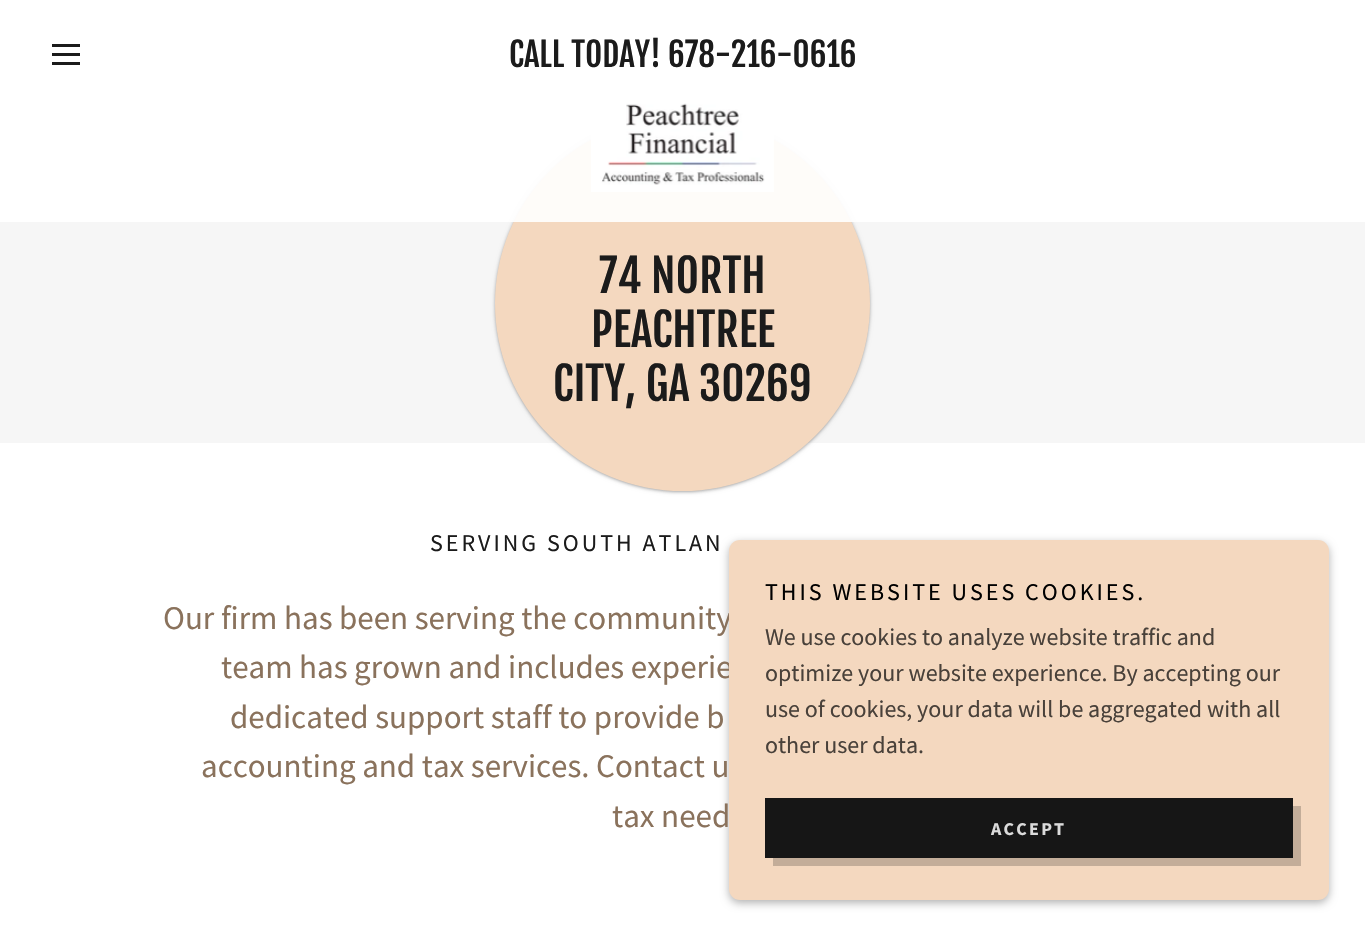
#include "include/core/SkBlurTypes.h"
#include "include/core/SkCanvas.h"
#include "include/core/SkData.h"
#include "include/core/SkFont.h"
#include "include/core/SkFontMgr.h"
#include "include/core/SkImage.h"
#include "include/core/SkMaskFilter.h"
#include "include/core/SkPaint.h"
#include "include/core/SkPathBuilder.h"
#include "include/core/SkTextBlob.h"
#include "include/effects/SkDashPathEffect.h"
#include "include/effects/SkGradientShader.h"
#include "include/utils/SkParsePath.h"

extern sk_sp<SkFontMgr> fontMgr;

void draw(SkCanvas* canvas) {
  SkPaint p;
  p.setAntiAlias(true);
  auto spacedText = [&](const char* s, float x, float y, const SkFont& font, const SkPaint& ink, float letter, float word) {
    std::vector<SkGlyphID> glyphs(font.countText(s, strlen(s), SkTextEncoding::kUTF8));
    std::vector<float> xs(glyphs.size());
    font.textToGlyphs(s, strlen(s), SkTextEncoding::kUTF8, glyphs);
    font.getXPos(glyphs, xs, x);
    float extra = 0;
    for (size_t i = 0; i < glyphs.size(); i++) {
      xs[i] += extra;
      extra += letter + word * (glyphs[i] == font.unicharToGlyph(' '));
    }
    canvas->drawTextBlob(SkTextBlob::MakeFromPosHGlyphs(glyphs, xs, y, font), 0, 0, ink);
  };
  canvas->clear(SkColorSetRGB(246, 246, 246));
  p.setColor(SK_ColorWHITE);
  canvas->drawRect(SkRect::MakeLTRB(0, 443, 1365, 936), p);
  p.setColor(SkColorSetARGB(61, 0, 0, 0));
  p.setMaskFilter(SkMaskFilter::MakeBlur(kNormal_SkBlurStyle, 1.5f));
  canvas->drawRoundRect(SkRect::MakeLTRB(495, 117, 870, 492), 187.5f, 187.5f, p);
  p.setMaskFilter(nullptr);
  p.setColor(SkColorSetARGB(31, 0, 0, 0));
  p.setMaskFilter(SkMaskFilter::MakeBlur(kNormal_SkBlurStyle, 2));
  canvas->drawRoundRect(SkRect::MakeLTRB(495, 117, 870, 492), 187.5f, 187.5f, p);
  p.setMaskFilter(nullptr);
  p.setColor(SkColorSetRGB(244, 216, 191));
  canvas->drawCircle(682.5f, 303.5f, 187.5f, p);
  p.setColor(SkColorSetARGB(230, 255, 255, 255));
  canvas->drawRect(SkRect::MakeLTRB(0, 0, 1365, 222), p);
  p.setColor(SkColorSetRGB(27, 27, 27));
  canvas->drawRect(SkRect::MakeLTRB(52, 44, 80, 47), p);
  canvas->drawRect(SkRect::MakeLTRB(52, 53, 80, 56), p);
  canvas->drawRect(SkRect::MakeLTRB(52, 62, 80, 65), p);
  canvas->drawImageRect(SkImages::DeferredFromEncodedData(SkData::MakeFromFileName("images/1.png")), SkRect::MakeLTRB(591, 103, 774, 192), SkSamplingOptions());
  p.setColor(SkColorSetARGB(77, 0, 0, 0));
  p.setMaskFilter(SkMaskFilter::MakeBlur(kNormal_SkBlurStyle, 4.5f));
  canvas->drawRoundRect(SkRect::MakeLTRB(729, 543, 1329, 903), 11, 11, p);
  p.setMaskFilter(nullptr);
  SkFont font1(fontMgr->matchFamilyStyle("Fjalla One", SkFontStyle::Normal()), 33);
  font1.setSubpixel(true);
  p.setColor(SkColorSetRGB(27, 27, 27));
  canvas->drawString("CALL TODAY! 678-216-0616", 509, 67, font1, p);
  SkFont font2(fontMgr->matchFamilyStyle("Fjalla One", SkFontStyle::Normal()), 45);
  font2.setSubpixel(true);
  canvas->drawString("74 NORTH", 599, 293, font2, p);
  canvas->drawString("PEACHTREE", 591, 347, font2, p);
  canvas->drawString("CITY, GA 30269", 553, 401, font2, p);
  SkFont font3(fontMgr->matchFamilyStyle("Source Sans Pro", SkFontStyle::Normal()), 24);
  font3.setSubpixel(true);
  spacedText("SERVING SOUTH ATLAN", 430, 551, font3, p, 3, 0);
  SkFont font4(fontMgr->matchFamilyStyle("Source Sans Pro", SkFontStyle::Normal()), 33);
  font4.setSubpixel(true);
  p.setColor(SkColorSetRGB(138, 114, 92));
  canvas->drawString("Our firm has been serving the community", 163, 629, font4, p);
  canvas->drawString("team has grown and includes experie", 221, 678, font4, p);
  canvas->drawString("dedicated support staff to provide b", 230, 728, font4, p);
  canvas->drawString("accounting and tax services. Contact u", 201, 777, font4, p);
  canvas->drawString("tax need", 612, 827, font4, p);
  p.setColor(SkColorSetRGB(244, 216, 191));
  canvas->drawRoundRect(SkRect::MakeLTRB(729, 540, 1329, 900), 11, 11, p);
  p.setColor(SK_ColorBLACK);
  spacedText("THIS WEBSITE USES COOKIES.", 765, 600, font3, p, 3, 0);
  p.setColor(SkColorSetRGB(73, 65, 58));
  canvas->drawString("We use cookies to analyze website traffic and", 765, 645, font3, p);
  canvas->drawString("optimize your website experience. By accepting our", 765, 681, font3, p);
  canvas->drawString("use of cookies, your data will be aggregated with all", 765, 717, font3, p);
  canvas->drawString("other user data.", 765, 753, font3, p);
  p.setColor(SkColorSetRGB(22, 22, 22));
  canvas->drawRect(SkRect::MakeLTRB(765, 798, 1293, 858), p);
  p.setColor(SkColorSetRGB(195, 173, 153));
  canvas->drawPath(SkPathBuilder().moveTo(773, 858).lineTo(773, 866).lineTo(1301, 866).lineTo(1301, 806).lineTo(1293, 806).lineTo(1293, 858).close().detach(), p);
  SkFont font5(fontMgr->matchFamilyStyle("Source Sans Pro", SkFontStyle::Bold()), 18);
  font5.setSubpixel(true);
  p.setColor(SkColorSetRGB(219, 219, 219));
  spacedText("ACCEPT", 991, 835, font5, p, 2.25f, 0);
}
